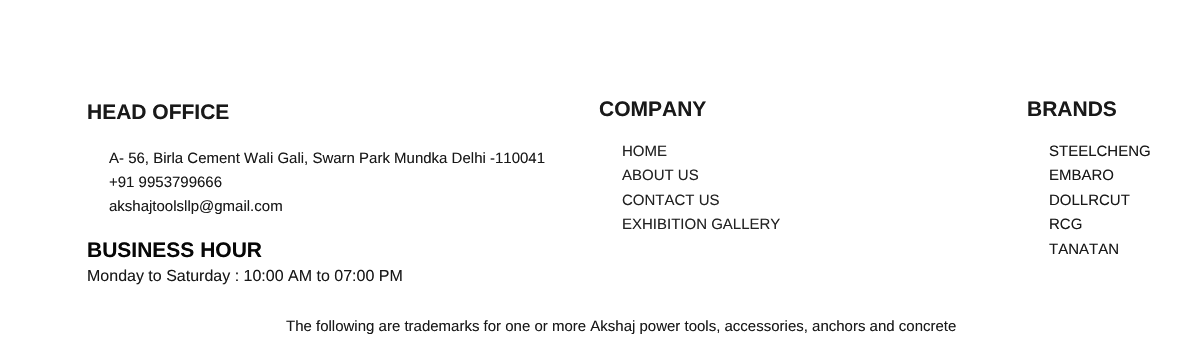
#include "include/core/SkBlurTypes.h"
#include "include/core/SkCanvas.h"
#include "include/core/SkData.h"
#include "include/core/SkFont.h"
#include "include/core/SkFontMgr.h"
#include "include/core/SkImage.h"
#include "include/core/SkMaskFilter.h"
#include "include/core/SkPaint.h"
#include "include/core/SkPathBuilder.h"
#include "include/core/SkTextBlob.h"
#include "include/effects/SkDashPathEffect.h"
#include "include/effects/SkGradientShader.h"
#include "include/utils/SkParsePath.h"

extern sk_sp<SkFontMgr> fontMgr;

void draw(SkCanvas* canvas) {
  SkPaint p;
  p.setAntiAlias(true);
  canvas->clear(SK_ColorWHITE);
  SkFont font1(fontMgr->matchFamilyStyle("Liberation Sans", SkFontStyle::Bold()), 21);
  font1.setSubpixel(true);
  p.setColor(SkColorSetRGB(25, 25, 25));
  canvas->drawString("HEAD OFFICE", 87, 119, font1, p);
  SkFont font2(fontMgr->matchFamilyStyle("Liberation Sans", SkFontStyle::Normal()), 15);
  font2.setSubpixel(true);
  canvas->drawString("A- 56, Birla Cement Wali Gali, Swarn Park Mundka Delhi -110041", 109, 163, font2, p);
  canvas->drawString("+91 9953799666", 109, 187, font2, p);
  canvas->drawString("akshajtoolsllp@gmail.com", 109, 211, font2, p);
  p.setColor(SkColorSetRGB(7, 7, 7));
  canvas->drawString("BUSINESS HOUR", 87, 257, font1, p);
  SkFont font3(fontMgr->matchFamilyStyle("Liberation Sans", SkFontStyle::Normal()), 16);
  font3.setSubpixel(true);
  p.setColor(SkColorSetRGB(25, 25, 25));
  canvas->drawString("Monday to Saturday : 10:00 AM to 07:00 PM", 87, 281, font3, p);
  canvas->drawString("COMPANY", 599, 116, font1, p);
  p.setColor(SkColorSetRGB(35, 35, 35));
  canvas->drawString("HOME", 622, 156, font2, p);
  canvas->drawString("ABOUT US", 622, 180, font2, p);
  canvas->drawString("CONTACT US", 622, 205, font2, p);
  canvas->drawString("EXHIBITION GALLERY", 622, 229, font2, p);
  p.setColor(SkColorSetRGB(25, 25, 25));
  canvas->drawString("BRANDS", 1027, 116, font1, p);
  canvas->drawString("STEELCHENG", 1049, 156, font2, p);
  canvas->drawString("EMBARO", 1049, 180, font2, p);
  canvas->drawString("DOLLRCUT", 1049, 205, font2, p);
  canvas->drawString("RCG", 1049, 229, font2, p);
  canvas->drawString("TANATAN", 1049, 254, font2, p);
  canvas->drawString("The following are trademarks for one or more Akshaj power tools, accessories, anchors and concrete", 286, 331, font2, p);
}
